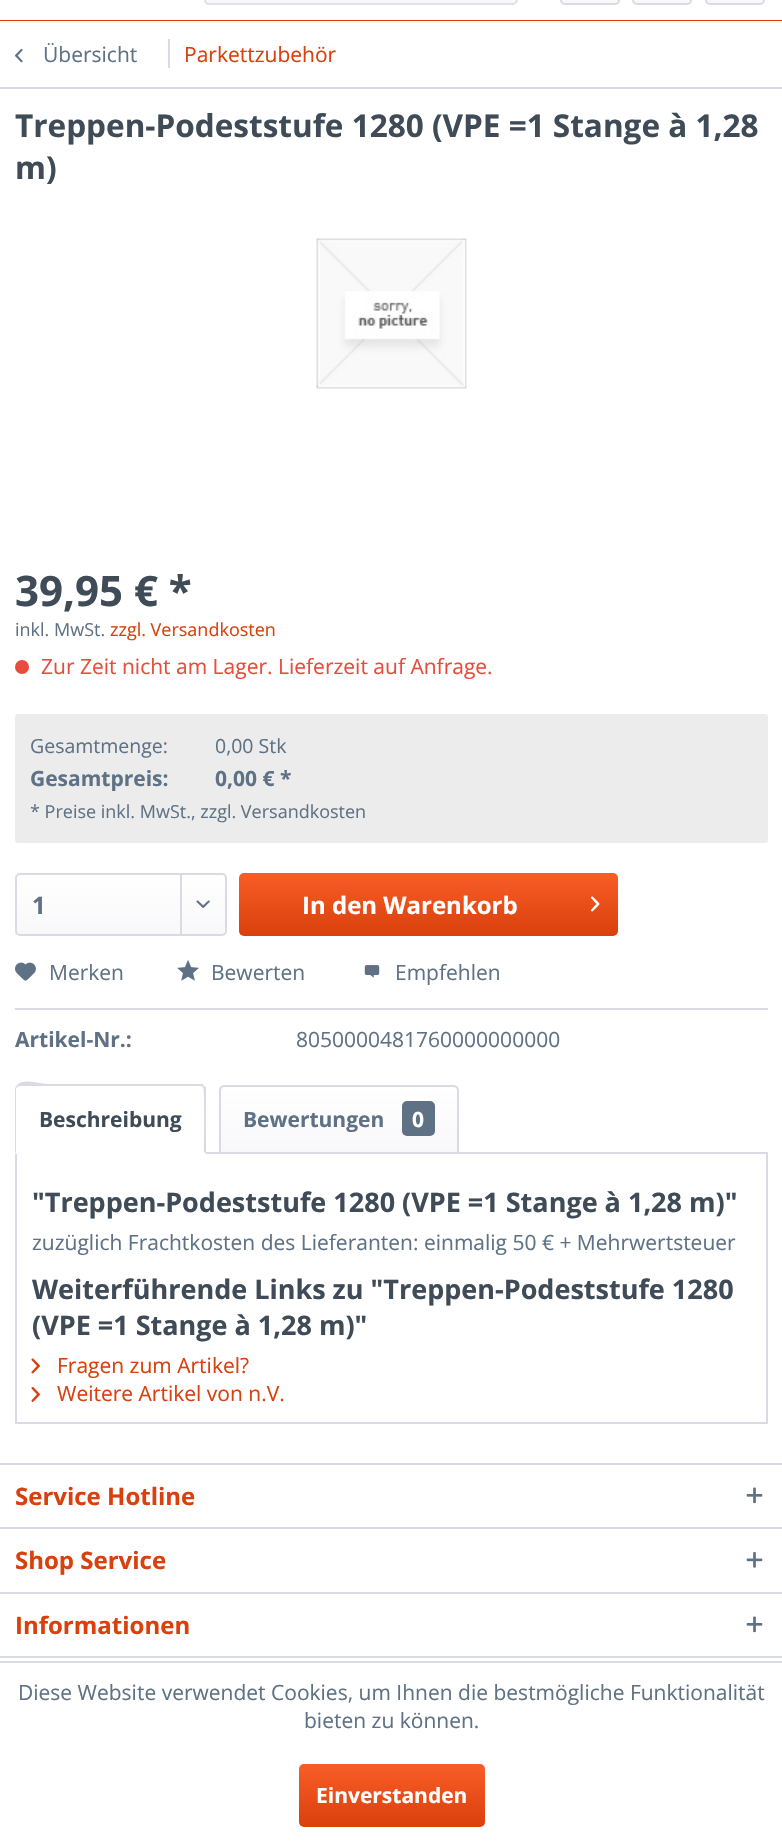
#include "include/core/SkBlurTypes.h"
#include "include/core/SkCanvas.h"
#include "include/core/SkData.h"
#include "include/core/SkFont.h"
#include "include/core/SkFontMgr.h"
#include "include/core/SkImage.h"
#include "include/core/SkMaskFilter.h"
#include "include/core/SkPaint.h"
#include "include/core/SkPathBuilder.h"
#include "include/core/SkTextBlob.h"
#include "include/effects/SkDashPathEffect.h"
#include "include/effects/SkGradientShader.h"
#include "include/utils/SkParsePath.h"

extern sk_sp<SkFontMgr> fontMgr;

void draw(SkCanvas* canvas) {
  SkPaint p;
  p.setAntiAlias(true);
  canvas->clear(SK_ColorWHITE);
  p.setColor(SkColorSetRGB(217, 64, 11));
  canvas->drawRect(SkRect::MakeLTRB(0, 20, 782, 21), p);
  p.setColor(SkColorSetRGB(248, 248, 250));
  canvas->drawRoundRect(SkRect::MakeLTRB(204, -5, 518, 5), 5, 5, p);
  p.setStyle(SkPaint::kStroke_Style);
  p.setStrokeWidth(1.5f);
  p.setColor(SkColorSetRGB(218, 218, 229));
  canvas->drawPath(SkPathBuilder().moveTo(515.5f, -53.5f).cubicTo(516.5f, -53, 517, -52, 517, -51).lineTo(517, 0).cubicTo(517, 1, 516.5f, 2, 515.5f, 2.5f).cubicTo(515, 3.5f, 514, 3.5f, 513, 4).lineTo(208.5f, 4).cubicTo(207.5f, 4, 206.5f, 3.5f, 206, 2.5f).cubicTo(205, 2, 205, 1, 205, 0).lineTo(205, -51).cubicTo(205, -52, 205, -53, 206, -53.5f).detach(), p);
  p.setStyle(SkPaint::kFill_Style);
  {
    const SkColor colors[] = {SK_ColorWHITE, SkColorSetRGB(248, 248, 250)};
    const float stops[] = {0, 1};
    const SkPoint ends[] = {{590, -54}, {590, 3}};
    p.setShader(SkGradientShader::MakeLinear(ends, colors, stops, 2, SkTileMode::kClamp));
    p.setAlpha(255);
  }
  canvas->drawRoundRect(SkRect::MakeLTRB(561, -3, 618, 3), 3, 3, p);
  p.setStyle(SkPaint::kStroke_Style);
  p.setStrokeWidth(2);
  p.setShader(nullptr);
  p.setColor(SkColorSetRGB(218, 218, 229));
  canvas->drawRoundRect(SkRect::MakeLTRB(561, -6, 619, 4), 4, 4, p);
  p.setStyle(SkPaint::kFill_Style);
  {
    const SkColor colors[] = {SK_ColorWHITE, SkColorSetRGB(248, 248, 250)};
    const float stops[] = {0, 1};
    const SkPoint ends[] = {{662, -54}, {662, 3}};
    p.setShader(SkGradientShader::MakeLinear(ends, colors, stops, 2, SkTileMode::kClamp));
    p.setAlpha(255);
  }
  canvas->drawRoundRect(SkRect::MakeLTRB(633, -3, 690, 3), 3, 3, p);
  p.setStyle(SkPaint::kStroke_Style);
  p.setShader(nullptr);
  p.setColor(SkColorSetRGB(218, 218, 229));
  canvas->drawRoundRect(SkRect::MakeLTRB(633, -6, 691, 4), 4, 4, p);
  p.setStyle(SkPaint::kFill_Style);
  {
    const SkColor colors[] = {SK_ColorWHITE, SkColorSetRGB(248, 248, 250)};
    const float stops[] = {0, 1};
    const SkPoint ends[] = {{735, -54}, {735, 3}};
    p.setShader(SkGradientShader::MakeLinear(ends, colors, stops, 2, SkTileMode::kClamp));
    p.setAlpha(255);
  }
  canvas->drawRoundRect(SkRect::MakeLTRB(707, -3, 764, 3), 3, 3, p);
  p.setStyle(SkPaint::kStroke_Style);
  p.setShader(nullptr);
  p.setColor(SkColorSetRGB(218, 218, 229));
  canvas->drawRoundRect(SkRect::MakeLTRB(706, -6, 764, 4), 4, 4, p);
  p.setStyle(SkPaint::kFill_Style);
  canvas->drawRect(SkRect::MakeLTRB(0, 87, 782, 89), p);
  canvas->drawImageRect(SkImages::DeferredFromEncodedData(SkData::MakeFromFileName("images/1.png")), SkRect::MakeLTRB(15, 48, 23, 63), SkSamplingOptions());
  canvas->drawRect(SkRect::MakeLTRB(168, 39, 170, 68), p);
  canvas->drawImageRect(SkImages::DeferredFromEncodedData(SkData::MakeFromFileName("images/2.png")), SkRect::MakeLTRB(316, 238, 467, 389), SkSamplingOptions());
  p.setColor(SkColorSetRGB(231, 76, 60));
  canvas->drawCircle(22, 667, 7, p);
  p.setColor(SkColorSetRGB(236, 236, 236));
  canvas->drawRoundRect(SkRect::MakeLTRB(15, 714, 768, 843), 3, 3, p);
  {
    const SkColor colors[] = {SK_ColorWHITE, SkColorSetRGB(248, 248, 250)};
    const float stops[] = {0, 1};
    const SkPoint ends[] = {{121, 875}, {121, 935}};
    p.setShader(SkGradientShader::MakeLinear(ends, colors, stops, 2, SkTileMode::kClamp));
    p.setAlpha(255);
  }
  canvas->drawRoundRect(SkRect::MakeLTRB(17, 875, 225, 935), 3, 3, p);
  p.setStyle(SkPaint::kStroke_Style);
  p.setShader(nullptr);
  p.setColor(SkColorSetRGB(218, 218, 229));
  canvas->drawRoundRect(SkRect::MakeLTRB(16, 874, 226, 935), 4, 4, p);
  p.setStyle(SkPaint::kFill_Style);
  canvas->drawRect(SkRect::MakeLTRB(180, 875, 182, 935), p);
  canvas->drawImageRect(SkImages::DeferredFromEncodedData(SkData::MakeFromFileName("images/3.png")), SkRect::MakeLTRB(196, 900, 210, 908), SkSamplingOptions());
  {
    const SkColor colors[] = {SkColorSetRGB(250, 93, 39), SkColorSetRGB(217, 64, 11)};
    const float stops[] = {0, 1};
    const SkPoint ends[] = {{428, 873}, {428, 936}};
    p.setShader(SkGradientShader::MakeLinear(ends, colors, stops, 2, SkTileMode::kClamp));
    p.setAlpha(255);
  }
  canvas->drawRoundRect(SkRect::MakeLTRB(239, 873, 618, 936), 5, 5, p);
  canvas->drawImageRect(SkImages::DeferredFromEncodedData(SkData::MakeFromFileName("images/4.png")), SkRect::MakeLTRB(591, 896, 600, 912), SkSamplingOptions());
  p.setShader(nullptr);
  p.setColor(SkColorSetRGB(218, 218, 229));
  canvas->drawRect(SkRect::MakeLTRB(15, 1008, 768, 1010), p);
  canvas->drawImageRect(SkImages::DeferredFromEncodedData(SkData::MakeFromFileName("images/5.png")), SkRect::MakeLTRB(15, 962, 36, 981), SkSamplingOptions());
  canvas->drawImageRect(SkImages::DeferredFromEncodedData(SkData::MakeFromFileName("images/6.png")), SkRect::MakeLTRB(177, 960, 199, 981), SkSamplingOptions());
  canvas->drawImageRect(SkImages::DeferredFromEncodedData(SkData::MakeFromFileName("images/7.png")), SkRect::MakeLTRB(364, 965, 380, 978), SkSamplingOptions());
  p.setStyle(SkPaint::kStroke_Style);
  canvas->drawRect(SkRect::MakeLTRB(16, 1153, 767, 1423), p);
  p.setStyle(SkPaint::kFill_Style);
  p.setColor(SK_ColorWHITE);
  canvas->drawPath(SkPathBuilder().moveTo(20, 1085).lineTo(201, 1085).cubicTo(204, 1085, 206, 1087, 206, 1090).lineTo(206, 1154).lineTo(15, 1154).lineTo(15, 1090).cubicTo(15, 1087, 17, 1085, 20, 1085).close().detach(), p);
  p.setColor(SkColorSetRGB(218, 218, 229));
  canvas->drawPath(SkPathBuilder().moveTo(20, 1086).lineTo(17, 1087).lineTo(16, 1086).cubicTo(23, 1077, 38, 1084, 49, 1084).lineTo(203, 1084).lineTo(204, 1086).lineTo(203, 1087).lineTo(201, 1086).close().detach(), p);
  canvas->drawPath(SkPathBuilder().moveTo(204, 1086).lineTo(206, 1087).lineTo(206, 1154).lineTo(204, 1152).cubicTo(204, 1145, 205, 1088, 203, 1087).close().detach(), p);
  p.setColor(SK_ColorWHITE);
  canvas->drawPath(SkPathBuilder().moveTo(206, 1154).lineTo(204, 1152).lineTo(16, 1152).lineTo(15, 1154).close().detach(), p);
  p.setColor(SkColorSetRGB(218, 218, 229));
  canvas->drawPath(SkPathBuilder().moveTo(15, 1154).lineTo(16, 1152).lineTo(16, 1089).lineTo(17, 1087).lineTo(16, 1086).lineTo(15, 1089).close().detach(), p);
  {
    const SkColor colors[] = {SK_ColorWHITE, SkColorSetRGB(248, 248, 250)};
    const float stops[] = {0, 1};
    const SkPoint ends[] = {{339, 1086}, {339, 1152}};
    p.setShader(SkGradientShader::MakeLinear(ends, colors, stops, 2, SkTileMode::kClamp));
    p.setAlpha(255);
  }
  canvas->drawPath(SkPathBuilder().moveTo(224, 1086).lineTo(455, 1086).cubicTo(456.5f, 1086, 458, 1087.5f, 458, 1089).lineTo(458, 1152).lineTo(221, 1152).lineTo(221, 1089).cubicTo(221, 1087.5f, 222.5f, 1086, 224, 1086).close().detach(), p);
  p.setStyle(SkPaint::kStroke_Style);
  p.setShader(nullptr);
  p.setColor(SkColorSetRGB(218, 218, 229));
  canvas->drawPath(SkPathBuilder().moveTo(224, 1086).lineTo(454, 1086).cubicTo(456, 1086, 458, 1088, 458, 1090).lineTo(458, 1153).lineTo(220, 1153).lineTo(220, 1090).cubicTo(220, 1088, 222, 1086, 224, 1086).close().detach(), p);
  p.setStyle(SkPaint::kFill_Style);
  p.setColor(SkColorSetRGB(95, 114, 133));
  canvas->drawRoundRect(SkRect::MakeLTRB(402, 1101, 435, 1136), 5, 5, p);
  canvas->drawImageRect(SkImages::DeferredFromEncodedData(SkData::MakeFromFileName("images/8.png")), SkRect::MakeLTRB(31, 1358, 40, 1374), SkSamplingOptions());
  canvas->drawImageRect(SkImages::DeferredFromEncodedData(SkData::MakeFromFileName("images/9.png")), SkRect::MakeLTRB(31, 1387, 40, 1402), SkSamplingOptions());
  p.setColor(SkColorSetRGB(218, 218, 229));
  canvas->drawRect(SkRect::MakeLTRB(0, 1463, 782, 1465), p);
  canvas->drawImageRect(SkImages::DeferredFromEncodedData(SkData::MakeFromFileName("images/10.png")), SkRect::MakeLTRB(746, 1487, 763, 1504), SkSamplingOptions());
  canvas->drawRect(SkRect::MakeLTRB(0, 1527, 782, 1529), p);
  canvas->drawImageRect(SkImages::DeferredFromEncodedData(SkData::MakeFromFileName("images/11.png")), SkRect::MakeLTRB(746, 1552, 763, 1568), SkSamplingOptions());
  canvas->drawRect(SkRect::MakeLTRB(0, 1592, 782, 1594), p);
  canvas->drawImageRect(SkImages::DeferredFromEncodedData(SkData::MakeFromFileName("images/10.png")), SkRect::MakeLTRB(746, 1616, 763, 1633), SkSamplingOptions());
  canvas->drawRect(SkRect::MakeLTRB(0, 1656, 782, 1658), p);
  canvas->drawRect(SkRect::MakeLTRB(0, 1661, 782, 1663), p);
  {
    const SkColor colors[] = {SkColorSetRGB(250, 93, 39), SkColorSetRGB(217, 64, 11)};
    const float stops[] = {0, 1};
    const SkPoint ends[] = {{392, 1764}, {392, 1827}};
    p.setShader(SkGradientShader::MakeLinear(ends, colors, stops, 2, SkTileMode::kClamp));
    p.setAlpha(255);
  }
  canvas->drawRoundRect(SkRect::MakeLTRB(299, 1764, 485, 1827), 5, 5, p);
  SkFont font1(fontMgr->matchFamilyStyle("Open Sans", SkFontStyle::Normal()), 21);
  font1.setSubpixel(true);
  p.setShader(nullptr);
  p.setColor(SkColorSetRGB(95, 114, 133));
  canvas->drawString("Übersicht", 43, 62, font1, p);
  p.setColor(SkColorSetRGB(217, 64, 11));
  canvas->drawString("Parkettzubehör", 184, 62, font1, p);
  SkFont font2(fontMgr->matchFamilyStyle("Open Sans", SkFontStyle::Bold()), 31.5f);
  font2.setSubpixel(true);
  p.setColor(SkColorSetRGB(63, 76, 88));
  canvas->drawString("Treppen-Podeststufe 1280 (VPE =1 Stange à 1,28", 15, 137, font2, p);
  canvas->drawString("m)", 15, 179, font2, p);
  SkFont font3(fontMgr->matchFamilyStyle("Open Sans", SkFontStyle::Bold()), 42);
  font3.setSubpixel(true);
  canvas->drawString("39,95 € *", 15, 606, font3, p);
  SkFont font4(fontMgr->matchFamilyStyle("Open Sans", SkFontStyle::Normal()), 18);
  font4.setSubpixel(true);
  p.setColor(SkColorSetRGB(95, 114, 133));
  canvas->drawString("inkl. MwSt.", 15, 636, font4, p);
  p.setColor(SkColorSetRGB(217, 64, 11));
  canvas->drawString("zzgl. Versandkosten", 110, 636, font4, p);
  p.setColor(SkColorSetRGB(231, 76, 60));
  canvas->drawString("Zur Zeit nicht am Lager. Lieferzeit auf Anfrage.", 41, 674, font1, p);
  SkFont font5(fontMgr->matchFamilyStyle("Open Sans", SkFontStyle::Normal()), 19.5f);
  font5.setSubpixel(true);
  p.setColor(SkColorSetRGB(95, 114, 133));
  canvas->drawString("Gesamtmenge:", 30, 753, font5, p);
  canvas->drawString("0,00 Stk", 215, 753, font5, p);
  SkFont font6(fontMgr->matchFamilyStyle("Open Sans", SkFontStyle::Bold()), 21);
  font6.setSubpixel(true);
  canvas->drawString("Gesamtpreis:", 30, 786, font6, p);
  canvas->drawString("0,00 € *", 215, 786, font6, p);
  canvas->drawString("* Preise inkl. MwSt., zzgl. Versandkosten", 30, 818, font4, p);
  SkFont font7(fontMgr->matchFamilyStyle("Open Sans", SkFontStyle::Bold()), 24);
  font7.setSubpixel(true);
  canvas->drawString("1", 32, 914, font7, p);
  p.setColor(SK_ColorWHITE);
  canvas->drawString("In den Warenkorb", 302, 914, font7, p);
  p.setColor(SkColorSetRGB(95, 114, 133));
  canvas->drawString("Merken", 49, 980, font1, p);
  canvas->drawString("Bewerten", 211, 980, font1, p);
  canvas->drawString("Empfehlen", 395, 980, font1, p);
  canvas->drawString("Artikel-Nr.:", 15, 1047, font6, p);
  canvas->drawString("8050000481760000000000", 296, 1047, font1, p);
  p.setColor(SkColorSetRGB(63, 76, 88));
  canvas->drawString("Beschreibung", 39, 1127, font6, p);
  p.setColor(SkColorSetRGB(95, 114, 133));
  canvas->drawString("Bewertungen", 243, 1127, font6, p);
  p.setColor(SK_ColorWHITE);
  canvas->drawString("0", 412, 1127, font6, p);
  SkFont font8(fontMgr->matchFamilyStyle("Open Sans", SkFontStyle::Bold()), 27);
  font8.setSubpixel(true);
  p.setColor(SkColorSetRGB(63, 76, 88));
  canvas->drawString("\"Treppen-Podeststufe 1280 (VPE =1 Stange à 1,28 m)\"", 32, 1212, font8, p);
  p.setColor(SkColorSetRGB(95, 114, 133));
  canvas->drawString("zuzüglich Frachtkosten des Lieferanten: einmalig 50 € + Mehrwertsteuer", 32, 1250, font1, p);
  p.setColor(SkColorSetRGB(63, 76, 88));
  canvas->drawString("Weiterführende Links zu \"Treppen-Podeststufe 1280", 32, 1299, font8, p);
  canvas->drawString("(VPE =1 Stange à 1,28 m)\"", 32, 1335, font8, p);
  p.setColor(SkColorSetRGB(217, 64, 11));
  canvas->drawString("Fragen zum Artikel?", 57, 1373, font1, p);
  canvas->drawString("Weitere Artikel von n.V.", 57, 1401, font1, p);
  canvas->drawString("Service Hotline", 15, 1505, font7, p);
  canvas->drawString("Shop Service", 15, 1569, font7, p);
  canvas->drawString("Informationen", 15, 1634, font7, p);
  p.setColor(SkColorSetRGB(95, 114, 133));
  canvas->drawString("Diese Website verwendet Cookies, um Ihnen die bestmögliche Funktionalität", 18, 1700, font1, p);
  canvas->drawString("bieten zu können.", 304, 1728, font1, p);
  p.setColor(SK_ColorWHITE);
  canvas->drawString("Einverstanden", 316, 1803, font6, p);
}
